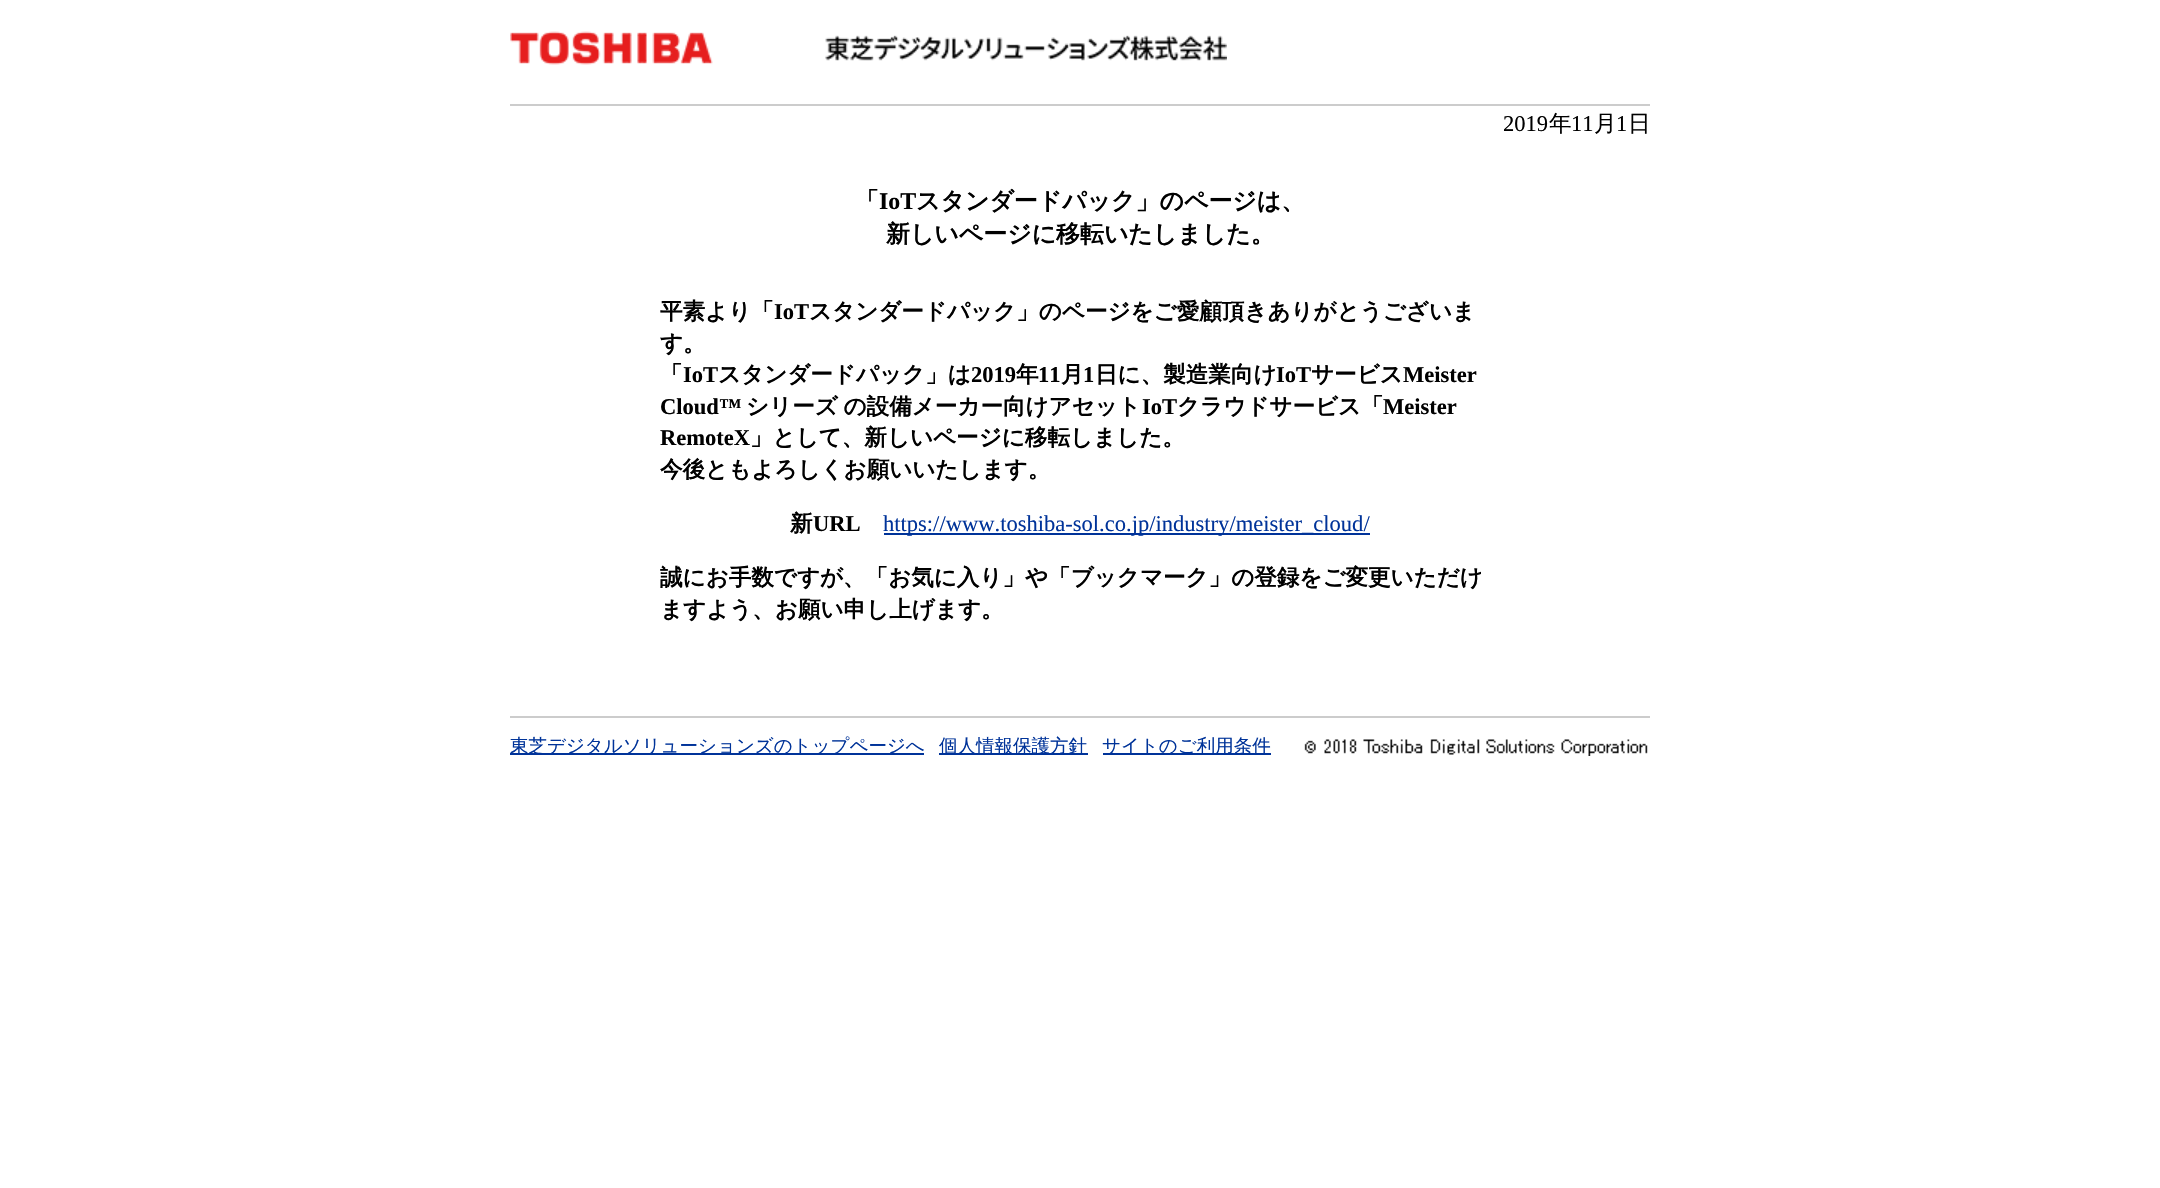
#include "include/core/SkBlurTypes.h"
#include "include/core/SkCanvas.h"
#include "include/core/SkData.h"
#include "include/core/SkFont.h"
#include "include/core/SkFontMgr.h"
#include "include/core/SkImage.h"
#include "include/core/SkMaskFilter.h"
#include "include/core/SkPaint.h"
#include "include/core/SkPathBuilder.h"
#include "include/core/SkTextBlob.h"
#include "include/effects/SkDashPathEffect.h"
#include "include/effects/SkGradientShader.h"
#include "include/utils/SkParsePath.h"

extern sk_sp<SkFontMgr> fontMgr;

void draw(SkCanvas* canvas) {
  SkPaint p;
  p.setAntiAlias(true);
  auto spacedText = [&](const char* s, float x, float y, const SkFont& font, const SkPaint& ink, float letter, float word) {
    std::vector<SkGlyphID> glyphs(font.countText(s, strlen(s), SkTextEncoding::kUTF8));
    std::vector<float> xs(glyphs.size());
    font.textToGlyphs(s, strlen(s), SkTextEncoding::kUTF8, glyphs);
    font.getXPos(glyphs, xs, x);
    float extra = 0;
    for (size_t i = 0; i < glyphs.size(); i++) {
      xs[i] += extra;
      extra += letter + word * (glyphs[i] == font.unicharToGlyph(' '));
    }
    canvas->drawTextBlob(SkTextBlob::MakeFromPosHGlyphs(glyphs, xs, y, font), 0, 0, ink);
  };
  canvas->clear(SK_ColorWHITE);
  p.setColor(SkColorSetRGB(204, 204, 204));
  canvas->drawRect(SkRect::MakeLTRB(510, 104, 1650, 106), p);
  canvas->drawImageRect(SkImages::DeferredFromEncodedData(SkData::MakeFromFileName("images/1.png")), SkRect::MakeLTRB(510, 31, 713, 65), SkSamplingOptions());
  canvas->drawImageRect(SkImages::DeferredFromEncodedData(SkData::MakeFromFileName("images/2.png")), SkRect::MakeLTRB(825, 35, 1227, 61), SkSamplingOptions());
  p.setColor(SkColorSetRGB(0, 51, 153));
  canvas->drawRect(SkRect::MakeLTRB(884, 533, 1370, 535), p);
  p.setColor(SkColorSetRGB(204, 204, 204));
  canvas->drawRect(SkRect::MakeLTRB(510, 716, 1650, 718), p);
  p.setColor(SkColorSetRGB(0, 51, 153));
  canvas->drawRect(SkRect::MakeLTRB(510, 753, 924, 755), p);
  canvas->drawRect(SkRect::MakeLTRB(939, 753, 1088, 755), p);
  canvas->drawRect(SkRect::MakeLTRB(1103, 753, 1271, 755), p);
  canvas->drawImageRect(SkImages::DeferredFromEncodedData(SkData::MakeFromFileName("images/3.png")), SkRect::MakeLTRB(1304, 739, 1648, 756), SkSamplingOptions());
  SkFont font1(fontMgr->matchFamilyStyle("Liberation Serif", SkFontStyle::Normal()), 22.55f);
  font1.setSubpixel(true);
  p.setColor(SK_ColorBLACK);
  canvas->drawString("2019", 1503, 131, font1, p);
  SkFont font2(fontMgr->matchFamilyStyle("WenQuanYi Zen Hei", SkFontStyle(500, SkFontStyle::kNormal_Width, SkFontStyle::kUpright_Slant)), 22.55f);
  font2.setSubpixel(true);
  canvas->drawString("年", 1549, 131, font2, p);
  canvas->drawString("11", 1571, 131, font1, p);
  canvas->drawString("月", 1594, 131, font2, p);
  canvas->drawString("1", 1616, 131, font1, p);
  canvas->drawString("日", 1628, 131, font2, p);
  SkFont font3(fontMgr->matchFamilyStyle("WenQuanYi Zen Hei", SkFontStyle::Bold()), 23.9f);
  font3.setSubpixel(true);
  canvas->drawString("「", 855, 209, font3, p);
  SkFont font4(fontMgr->matchFamilyStyle("Liberation Serif", SkFontStyle::Bold()), 23.9f);
  font4.setSubpixel(true);
  canvas->drawString("IoT", 879, 209, font4, p);
  canvas->drawString("スタンダードパック」のページは、", 916, 209, font3, p);
  canvas->drawString("新しいページに移転いたしました。", 886, 242, font3, p);
  SkFont font5(fontMgr->matchFamilyStyle("WenQuanYi Zen Hei", SkFontStyle::Bold()), 22.55f);
  font5.setSubpixel(true);
  canvas->drawString("平素より「", 660, 319, font5, p);
  SkFont font6(fontMgr->matchFamilyStyle("Liberation Serif", SkFontStyle::Bold()), 22.55f);
  font6.setSubpixel(true);
  canvas->drawString("IoT", 774, 319, font6, p);
  canvas->drawString("スタンダードパック」のページをご愛顧頂きありがとうございま", 809, 319, font5, p);
  canvas->drawString("す。", 660, 351, font5, p);
  canvas->drawString("「", 660, 382, font5, p);
  canvas->drawString("IoT", 683, 382, font6, p);
  canvas->drawString("スタンダードパック」は", 718, 382, font5, p);
  canvas->drawString("2019", 971, 382, font6, p);
  canvas->drawString("年", 1016, 382, font5, p);
  canvas->drawString("11", 1038, 382, font6, p);
  canvas->drawString("月", 1061, 382, font5, p);
  canvas->drawString("1", 1083, 382, font6, p);
  canvas->drawString("日に、製造業向け", 1095, 382, font5, p);
  canvas->drawString("IoT", 1276, 382, font6, p);
  canvas->drawString("サービス", 1311, 382, font5, p);
  canvas->drawString("Meister", 1403, 382, font6, p);
  canvas->drawString("Cloud™", 660, 414, font6, p);
  spacedText("シリーズ の設備メーカー向けアセット", 746, 414, font5, p, 0, -1);
  canvas->drawString("IoT", 1142, 414, font6, p);
  canvas->drawString("クラウドサービス「", 1177, 414, font5, p);
  canvas->drawString("Meister", 1383, 414, font6, p);
  canvas->drawString("RemoteX", 660, 445, font6, p);
  canvas->drawString("」として、新しいページに移転しました。", 750, 445, font5, p);
  canvas->drawString("今後ともよろしくお願いいたします。", 660, 477, font5, p);
  canvas->drawString("新", 790, 531, font5, p);
  canvas->drawString("URL", 813, 531, font6, p);
  p.setColor(SkColorSetRGB(0, 51, 153));
  canvas->drawString("https://www.toshiba-sol.co.jp/industry/meister_cloud/", 883, 531, font1, p);
  p.setColor(SK_ColorBLACK);
  canvas->drawString("誠にお手数ですが、「お気に入り」や「ブックマーク」の登録をご変更いただけ", 660, 585, font5, p);
  canvas->drawString("ますよう、お願い申し上げます。", 660, 617, font5, p);
  SkFont font7(fontMgr->matchFamilyStyle("WenQuanYi Zen Hei", SkFontStyle(500, SkFontStyle::kNormal_Width, SkFontStyle::kUpright_Slant)), 18.5f);
  font7.setSubpixel(true);
  p.setColor(SkColorSetRGB(0, 51, 153));
  canvas->drawString("東芝デジタルソリューションズのトップページへ", 510, 752, font7, p);
  canvas->drawString("個人情報保護方針", 939, 752, font7, p);
  canvas->drawString("サイトのご利用条件", 1102, 752, font7, p);
}
